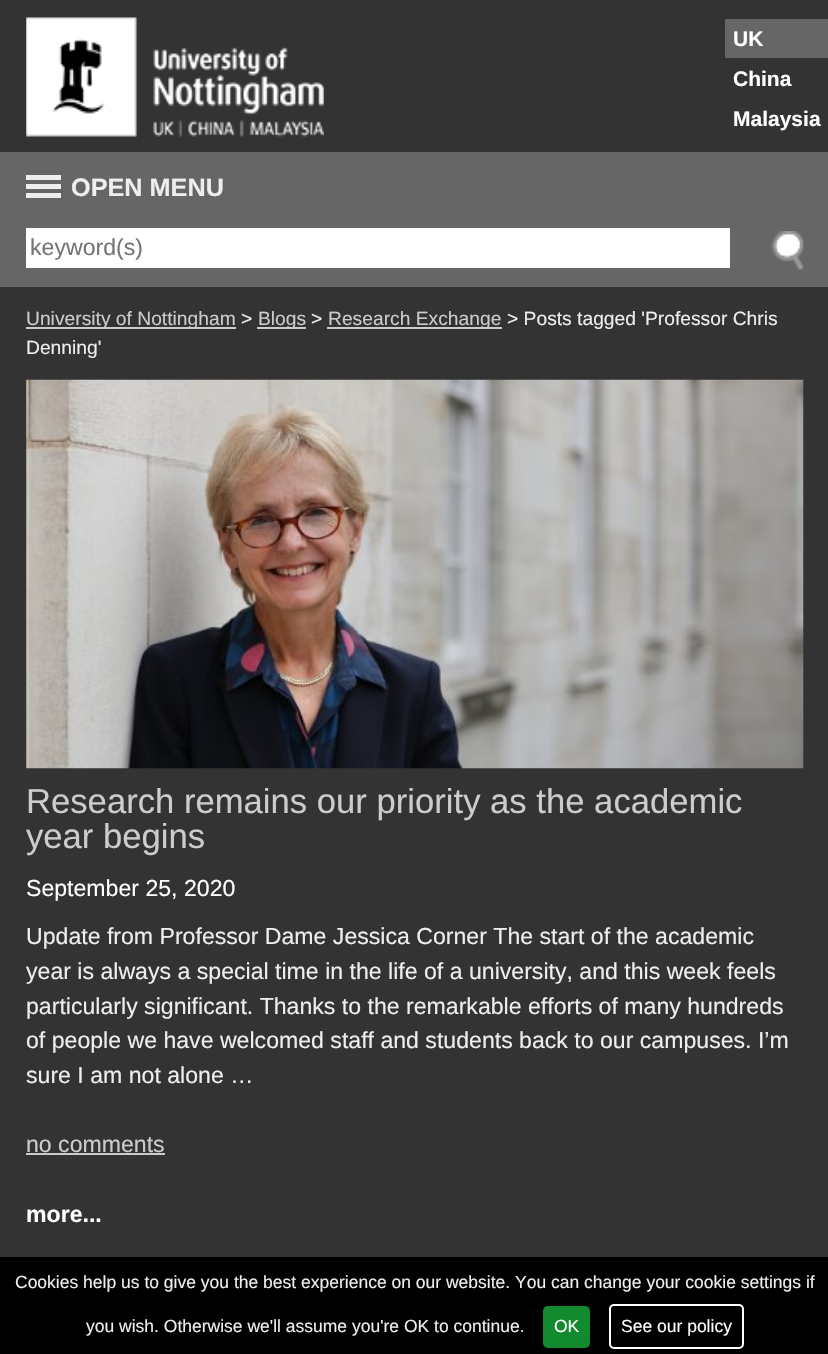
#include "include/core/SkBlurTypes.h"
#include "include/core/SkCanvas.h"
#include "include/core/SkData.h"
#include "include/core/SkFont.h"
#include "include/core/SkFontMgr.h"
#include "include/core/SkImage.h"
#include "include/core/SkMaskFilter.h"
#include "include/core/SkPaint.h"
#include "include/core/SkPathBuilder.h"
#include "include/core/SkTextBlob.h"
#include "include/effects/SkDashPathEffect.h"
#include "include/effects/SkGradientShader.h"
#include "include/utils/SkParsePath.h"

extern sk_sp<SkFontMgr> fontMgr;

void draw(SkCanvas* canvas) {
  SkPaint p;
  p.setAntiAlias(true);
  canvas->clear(SkColorSetRGB(51, 51, 51));
  canvas->drawImageRect(SkImages::DeferredFromEncodedData(SkData::MakeFromFileName("images/1.png")), SkRect::MakeLTRB(26, 17, 324, 137), SkSamplingOptions());
  p.setColor(SkColorSetRGB(102, 102, 102));
  canvas->drawRect(SkRect::MakeLTRB(725, 19, 828, 58), p);
  canvas->drawRect(SkRect::MakeLTRB(0, 152, 828, 287), p);
  p.setColor(SkColorSetRGB(238, 238, 238));
  canvas->drawRect(SkRect::MakeLTRB(26, 175, 61, 180), p);
  canvas->drawRect(SkRect::MakeLTRB(26, 184, 61, 189), p);
  canvas->drawRect(SkRect::MakeLTRB(26, 193, 61, 198), p);
  p.setColor(SK_ColorWHITE);
  canvas->drawRect(SkRect::MakeLTRB(26, 228, 730, 268), p);
  canvas->drawImageRect(SkImages::DeferredFromEncodedData(SkData::MakeFromFileName("images/2.png")), SkRect::MakeLTRB(771, 231, 804, 270), SkSamplingOptions());
  p.setColor(SkColorSetRGB(204, 204, 204));
  canvas->drawRect(SkRect::MakeLTRB(26, 327, 236, 329), p);
  canvas->drawRect(SkRect::MakeLTRB(257, 327, 306, 329), p);
  canvas->drawRect(SkRect::MakeLTRB(327, 327, 502, 329), p);
  canvas->drawImageRect(SkImages::DeferredFromEncodedData(SkData::MakeFromFileName("images/3.png")), SkRect::MakeLTRB(26, 379, 804, 769), SkSamplingOptions());
  canvas->drawRect(SkRect::MakeLTRB(26, 1153, 165, 1155), p);
  p.setColor(SK_ColorBLACK);
  canvas->drawRect(SkRect::MakeLTRB(0, 1257, 828, 1354), p);
  p.setColor(SkColorSetRGB(18, 139, 47));
  canvas->drawRoundRect(SkRect::MakeLTRB(543, 1306, 590, 1348), 5, 5, p);
  p.setStyle(SkPaint::kStroke_Style);
  p.setStrokeWidth(2);
  p.setColor(SK_ColorWHITE);
  canvas->drawRoundRect(SkRect::MakeLTRB(610, 1305, 743, 1348), 4, 4, p);
  SkFont font1(fontMgr->matchFamilyStyle("Liberation Sans", SkFontStyle::Bold()), 21);
  font1.setSubpixel(true);
  p.setStyle(SkPaint::kFill_Style);
  canvas->drawString("UK", 733, 46, font1, p);
  canvas->drawString("China", 733, 86, font1, p);
  canvas->drawString("Malaysia", 733, 126, font1, p);
  SkFont font2(fontMgr->matchFamilyStyle("Liberation Sans", SkFontStyle::Bold()), 25.25f);
  font2.setSubpixel(true);
  p.setColor(SkColorSetRGB(238, 238, 238));
  canvas->drawString("OPEN MENU", 71, 196, font2, p);
  SkFont font3(fontMgr->matchFamilyStyle("Liberation Sans", SkFontStyle::Normal()), 23.1f);
  font3.setSubpixel(true);
  p.setColor(SkColorSetRGB(117, 117, 117));
  canvas->drawString("keyword(s)", 30, 255, font3, p);
  SkFont font4(fontMgr->matchFamilyStyle("Liberation Sans", SkFontStyle::Normal()), 19.25f);
  font4.setSubpixel(true);
  p.setColor(SkColorSetRGB(204, 204, 204));
  canvas->drawString("University of Nottingham", 26, 325, font4, p);
  p.setColor(SkColorSetRGB(238, 238, 238));
  canvas->drawString(">", 241, 325, font4, p);
  p.setColor(SkColorSetRGB(204, 204, 204));
  canvas->drawString("Blogs", 258, 325, font4, p);
  p.setColor(SkColorSetRGB(238, 238, 238));
  canvas->drawString(">", 311, 325, font4, p);
  p.setColor(SkColorSetRGB(204, 204, 204));
  canvas->drawString("Research Exchange", 328, 325, font4, p);
  p.setColor(SkColorSetRGB(238, 238, 238));
  canvas->drawString("> Posts tagged 'Professor Chris", 507, 325, font4, p);
  canvas->drawString("Denning'", 26, 354, font4, p);
  SkFont font5(fontMgr->matchFamilyStyle("Liberation Sans", SkFontStyle::Normal()), 34.65f);
  font5.setSubpixel(true);
  p.setColor(SkColorSetRGB(204, 204, 204));
  canvas->drawString("Research remains our priority as the academic", 26, 813, font5, p);
  canvas->drawString("year begins", 26, 848, font5, p);
  p.setColor(SK_ColorWHITE);
  canvas->drawString("September 25, 2020", 26, 896, font3, p);
  p.setColor(SkColorSetRGB(238, 238, 238));
  canvas->drawString("Update from Professor Dame Jessica Corner The start of the academic", 26, 944, font3, p);
  canvas->drawString("year is always a special time in the life of a university, and this week feels", 26, 979, font3, p);
  canvas->drawString("particularly significant. Thanks to the remarkable efforts of many hundreds", 26, 1014, font3, p);
  canvas->drawString("of people we have welcomed staff and students back to our campuses. I’m", 26, 1048, font3, p);
  canvas->drawString("sure I am not alone …", 26, 1083, font3, p);
  p.setColor(SkColorSetRGB(204, 204, 204));
  canvas->drawString("no comments", 26, 1152, font3, p);
  SkFont font6(fontMgr->matchFamilyStyle("Liberation Sans", SkFontStyle::Bold()), 23.1f);
  font6.setSubpixel(true);
  p.setColor(SK_ColorWHITE);
  canvas->drawString("more...", 26, 1222, font6, p);
  SkFont font7(fontMgr->matchFamilyStyle("Liberation Sans", SkFontStyle::Normal()), 17.5f);
  font7.setSubpixel(true);
  p.setColor(SkColorSetRGB(238, 238, 238));
  canvas->drawString("Cookies help us to give you the best experience on our website. You can change your cookie settings if", 15, 1288, font7, p);
  canvas->drawString("you wish. Otherwise we'll assume you're OK to continue.", 86, 1332, font7, p);
  p.setColor(SK_ColorWHITE);
  canvas->drawString("OK", 554, 1332, font7, p);
  canvas->drawString("See our policy", 621, 1332, font7, p);
}
